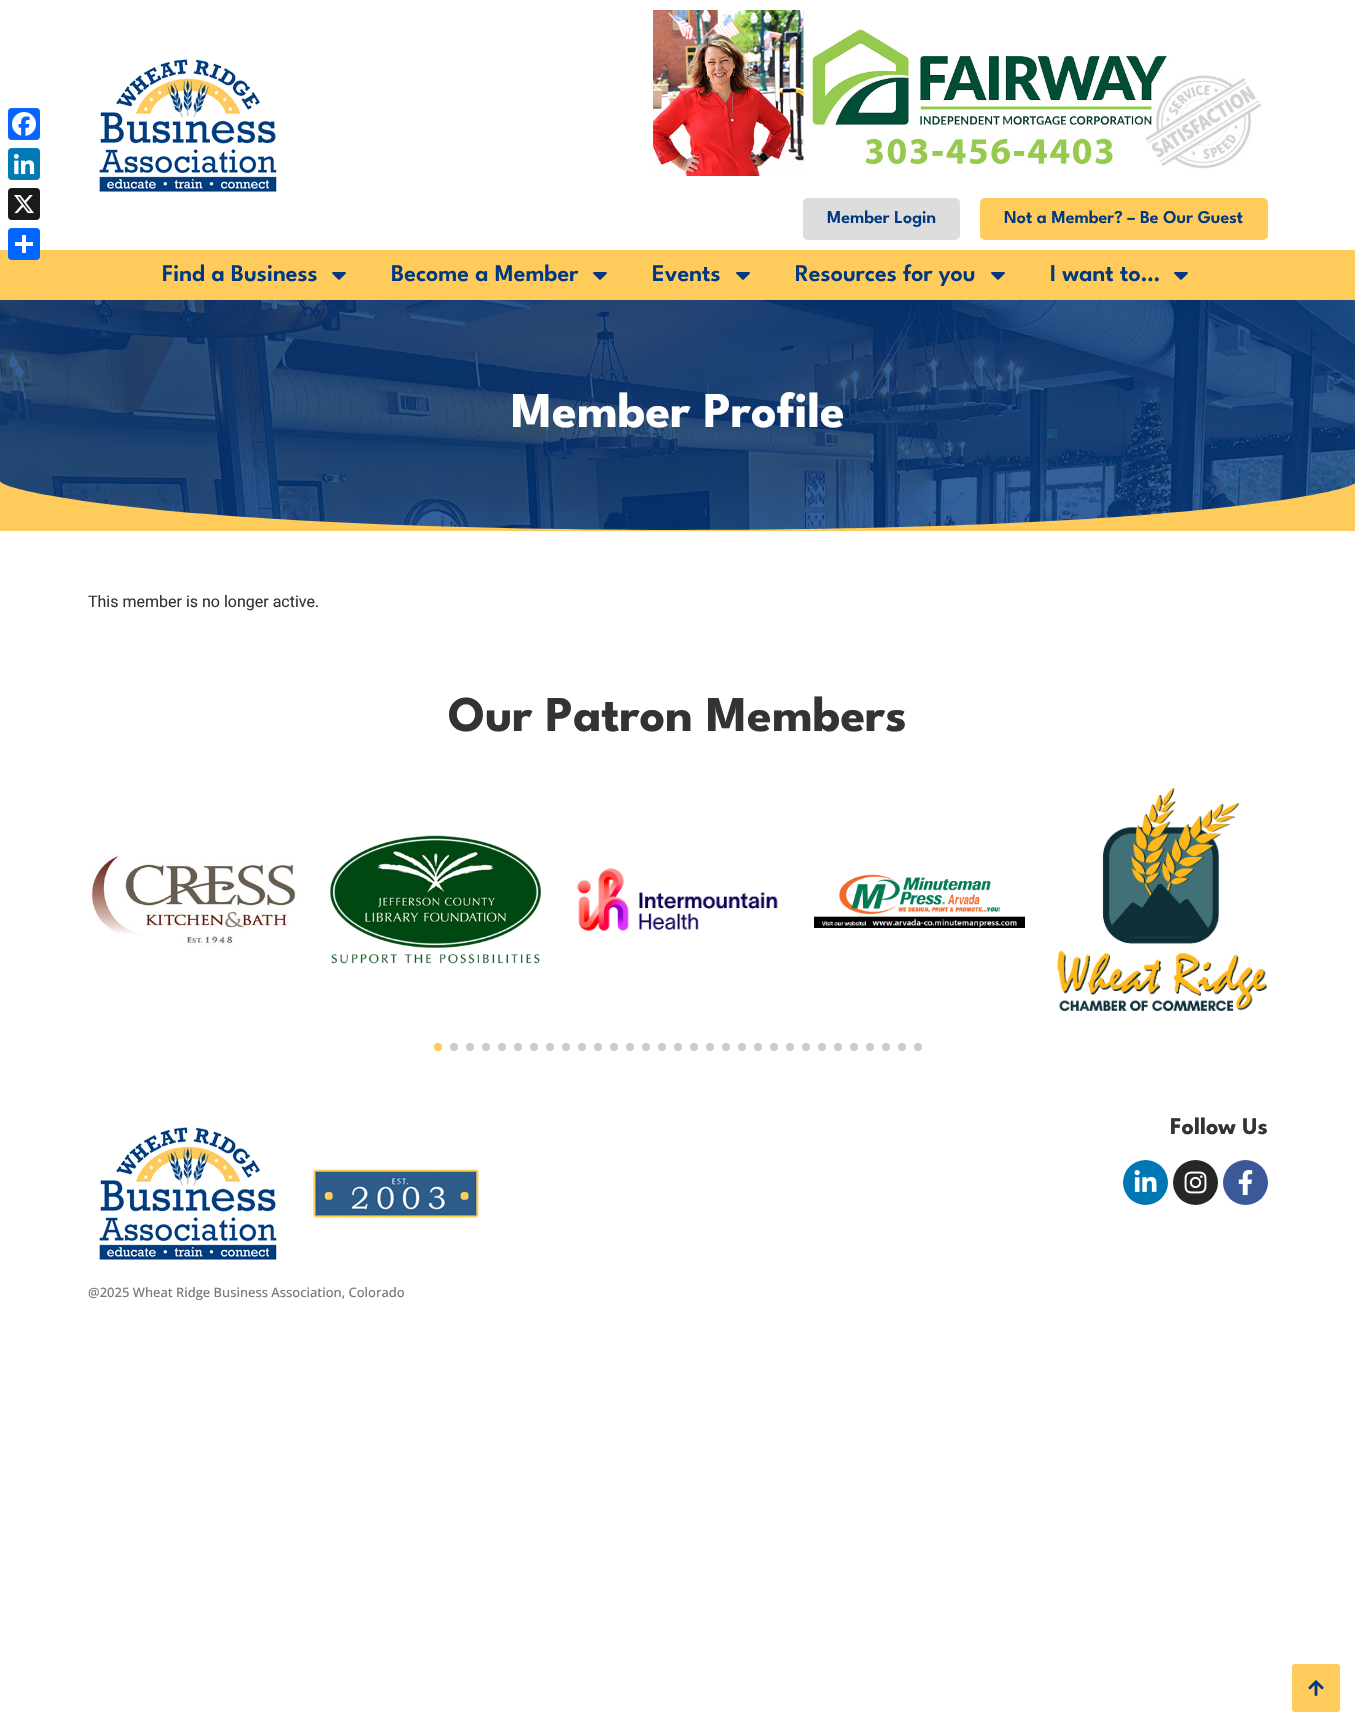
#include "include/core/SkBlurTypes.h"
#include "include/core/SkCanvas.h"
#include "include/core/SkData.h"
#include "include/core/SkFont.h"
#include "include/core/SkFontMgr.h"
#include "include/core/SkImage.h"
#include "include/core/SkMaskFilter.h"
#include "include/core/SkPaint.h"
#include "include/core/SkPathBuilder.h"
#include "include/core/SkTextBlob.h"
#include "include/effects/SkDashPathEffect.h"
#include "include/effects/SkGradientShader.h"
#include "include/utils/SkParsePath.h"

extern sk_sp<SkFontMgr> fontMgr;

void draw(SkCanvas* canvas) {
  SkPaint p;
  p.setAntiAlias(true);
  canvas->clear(SK_ColorWHITE);
  p.setColor(SkColorSetRGB(8, 102, 255));
  canvas->drawRoundRect(SkRect::MakeLTRB(8, 108, 40, 140), 4, 4, p);
  canvas->drawImageRect(SkImages::DeferredFromEncodedData(SkData::MakeFromFileName("images/1.png")), SkRect::MakeLTRB(12, 112, 36, 136), SkSamplingOptions());
  p.setColor(SkColorSetRGB(0, 123, 181));
  canvas->drawRoundRect(SkRect::MakeLTRB(8, 148, 40, 180), 4, 4, p);
  canvas->drawImageRect(SkImages::DeferredFromEncodedData(SkData::MakeFromFileName("images/2.png")), SkRect::MakeLTRB(13, 153, 35, 175), SkSamplingOptions());
  p.setColor(SkColorSetRGB(26, 26, 26));
  canvas->drawRoundRect(SkRect::MakeLTRB(8, 188, 40, 220), 4, 4, p);
  canvas->drawImageRect(SkImages::DeferredFromEncodedData(SkData::MakeFromFileName("images/3.png")), SkRect::MakeLTRB(14, 195, 34, 214), SkSamplingOptions());
  p.setColor(SkColorSetRGB(255, 203, 91));
  canvas->drawRect(SkRect::MakeLTRB(0, 250, 1355, 300), p);
  p.setColor(SkColorSetRGB(1, 102, 255));
  canvas->drawRoundRect(SkRect::MakeLTRB(8, 228, 40, 260), 4, 4, p);
  p.setColor(SK_ColorWHITE);
  canvas->drawRect(SkRect::MakeLTRB(22, 235, 26, 253), p);
  canvas->drawRect(SkRect::MakeLTRB(15, 242, 33, 246), p);
  canvas->drawImageRect(SkImages::DeferredFromEncodedData(SkData::MakeFromFileName("images/4.png")), SkRect::MakeLTRB(99, 59, 277, 192), SkSamplingOptions());
  canvas->drawImageRect(SkImages::DeferredFromEncodedData(SkData::MakeFromFileName("images/5.png")), SkRect::MakeLTRB(653, 10, 1262, 176), SkSamplingOptions());
  p.setColor(SkColorSetRGB(221, 221, 221));
  canvas->drawRoundRect(SkRect::MakeLTRB(803, 198, 960, 240), 5, 5, p);
  p.setColor(SkColorSetRGB(255, 203, 91));
  canvas->drawRoundRect(SkRect::MakeLTRB(980, 198, 1268, 240), 5, 5, p);
  canvas->drawImageRect(SkImages::DeferredFromEncodedData(SkData::MakeFromFileName("images/6.png")), SkRect::MakeLTRB(332, 272, 346, 280), SkSamplingOptions());
  canvas->drawImageRect(SkImages::DeferredFromEncodedData(SkData::MakeFromFileName("images/6.png")), SkRect::MakeLTRB(593, 272, 607, 280), SkSamplingOptions());
  canvas->drawImageRect(SkImages::DeferredFromEncodedData(SkData::MakeFromFileName("images/6.png")), SkRect::MakeLTRB(736, 272, 750, 280), SkSamplingOptions());
  canvas->drawImageRect(SkImages::DeferredFromEncodedData(SkData::MakeFromFileName("images/6.png")), SkRect::MakeLTRB(991, 272, 1005, 280), SkSamplingOptions());
  canvas->drawImageRect(SkImages::DeferredFromEncodedData(SkData::MakeFromFileName("images/6.png")), SkRect::MakeLTRB(1174, 272, 1188, 280), SkSamplingOptions());
  canvas->drawImageRect(SkImages::DeferredFromEncodedData(SkData::MakeFromFileName("images/7.png")), SkRect::MakeLTRB(0, 300, 1355, 530), SkSamplingOptions());
  canvas->drawPath(SkPathBuilder().moveTo(678, 530).cubicTo(172, 529, 1, 491, 0, 481).lineTo(0, 531).lineTo(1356, 531).lineTo(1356, 482).cubicTo(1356, 491, 1184, 530, 678, 530).close().detach(), p);
  canvas->drawImageRect(SkImages::DeferredFromEncodedData(SkData::MakeFromFileName("images/8.png")), SkRect::MakeLTRB(89, 852, 298, 947), SkSamplingOptions());
  canvas->drawImageRect(SkImages::DeferredFromEncodedData(SkData::MakeFromFileName("images/9.png")), SkRect::MakeLTRB(330, 835, 541, 964), SkSamplingOptions());
  canvas->drawImageRect(SkImages::DeferredFromEncodedData(SkData::MakeFromFileName("images/10.png")), SkRect::MakeLTRB(576, 868, 778, 931), SkSamplingOptions());
  canvas->drawImageRect(SkImages::DeferredFromEncodedData(SkData::MakeFromFileName("images/11.png")), SkRect::MakeLTRB(814, 874, 1025, 928), SkSamplingOptions());
  canvas->drawImageRect(SkImages::DeferredFromEncodedData(SkData::MakeFromFileName("images/12.png")), SkRect::MakeLTRB(1057, 788, 1267, 1011), SkSamplingOptions());
  canvas->drawCircle(438, 1047, 4, p);
  p.setColor(SkColorSetRGB(204, 204, 204));
  canvas->drawCircle(454, 1047, 4, p);
  canvas->drawCircle(470, 1047, 4, p);
  canvas->drawCircle(486, 1047, 4, p);
  canvas->drawCircle(502, 1047, 4, p);
  canvas->drawCircle(518, 1047, 4, p);
  canvas->drawCircle(534, 1047, 4, p);
  canvas->drawCircle(550, 1047, 4, p);
  canvas->drawCircle(566, 1047, 4, p);
  canvas->drawCircle(582, 1047, 4, p);
  canvas->drawCircle(598, 1047, 4, p);
  canvas->drawCircle(614, 1047, 4, p);
  canvas->drawCircle(630, 1047, 4, p);
  canvas->drawCircle(646, 1047, 4, p);
  canvas->drawCircle(662, 1047, 4, p);
  canvas->drawCircle(678, 1047, 4, p);
  canvas->drawCircle(694, 1047, 4, p);
  canvas->drawCircle(710, 1047, 4, p);
  canvas->drawCircle(726, 1047, 4, p);
  canvas->drawCircle(742, 1047, 4, p);
  canvas->drawCircle(758, 1047, 4, p);
  canvas->drawCircle(774, 1047, 4, p);
  canvas->drawCircle(790, 1047, 4, p);
  canvas->drawCircle(806, 1047, 4, p);
  canvas->drawCircle(822, 1047, 4, p);
  canvas->drawCircle(838, 1047, 4, p);
  canvas->drawCircle(854, 1047, 4, p);
  canvas->drawCircle(870, 1047, 4, p);
  canvas->drawCircle(886, 1047, 4, p);
  canvas->drawCircle(902, 1047, 4, p);
  canvas->drawCircle(918, 1047, 4, p);
  p.setColor(SkColorSetRGB(0, 119, 181));
  canvas->drawCircle(1145.5f, 1182.5f, 22.5f, p);
  canvas->drawImageRect(SkImages::DeferredFromEncodedData(SkData::MakeFromFileName("images/13.png")), SkRect::MakeLTRB(1134, 1170, 1157, 1192), SkSamplingOptions());
  p.setColor(SkColorSetRGB(38, 38, 38));
  canvas->drawCircle(1195.5f, 1182.5f, 22.5f, p);
  canvas->drawImageRect(SkImages::DeferredFromEncodedData(SkData::MakeFromFileName("images/14.png")), SkRect::MakeLTRB(1184, 1171, 1207, 1194), SkSamplingOptions());
  p.setColor(SkColorSetRGB(59, 89, 152));
  canvas->drawCircle(1245.5f, 1182.5f, 22.5f, p);
  canvas->drawImageRect(SkImages::DeferredFromEncodedData(SkData::MakeFromFileName("images/15.png")), SkRect::MakeLTRB(1238, 1170, 1253, 1195), SkSamplingOptions());
  p.setColor(SkColorSetRGB(255, 203, 91));
  canvas->drawRoundRect(SkRect::MakeLTRB(1292, 1664, 1340, 1712), 3, 3, p);
  canvas->drawImageRect(SkImages::DeferredFromEncodedData(SkData::MakeFromFileName("images/16.png")), SkRect::MakeLTRB(1308, 1680, 1324, 1696), SkSamplingOptions());
  canvas->drawImageRect(SkImages::DeferredFromEncodedData(SkData::MakeFromFileName("images/4.png")), SkRect::MakeLTRB(99, 1127, 277, 1260), SkSamplingOptions());
  canvas->drawImageRect(SkImages::DeferredFromEncodedData(SkData::MakeFromFileName("images/17.png")), SkRect::MakeLTRB(313, 1169, 479, 1218), SkSamplingOptions());
  SkFont font1(fontMgr->matchFamilyStyle("League Spartan", SkFontStyle(600, SkFontStyle::kNormal_Width, SkFontStyle::kUpright_Slant)), 18);
  font1.setSubpixel(true);
  p.setColor(SkColorSetRGB(0, 57, 129));
  canvas->drawString("Member Login", 827, 223, font1, p);
  canvas->drawString("Not a Member? – Be Our Guest", 1004, 223, font1, p);
  SkFont font2(fontMgr->matchFamilyStyle("League Spartan", SkFontStyle(600, SkFontStyle::kNormal_Width, SkFontStyle::kUpright_Slant)), 24);
  font2.setSubpixel(true);
  canvas->drawString("Find a Business", 162, 281, font2, p);
  canvas->drawString("Become a Member", 391, 281, font2, p);
  canvas->drawString("Events", 652, 281, font2, p);
  canvas->drawString("Resources for you", 795, 281, font2, p);
  canvas->drawString("I want to…", 1050, 281, font2, p);
  SkFont font3(fontMgr->matchFamilyStyle("League Spartan", SkFontStyle::Bold()), 50);
  font3.setSubpixel(true);
  p.setColor(SK_ColorWHITE);
  canvas->drawString("Member Profile", 511, 427, font3, p);
  SkFont font4(fontMgr->matchFamilyStyle("Roboto", SkFontStyle::Normal()), 16);
  font4.setSubpixel(true);
  p.setColor(SkColorSetRGB(51, 51, 51));
  canvas->drawString("This member is no longer active.", 88, 607, font4, p);
  canvas->drawString("Our Patron Members", 448, 731, font3, p);
  SkFont font5(fontMgr->matchFamilyStyle("League Spartan", SkFontStyle::Bold()), 24);
  font5.setSubpixel(true);
  canvas->drawString("Follow Us", 1170, 1134, font5, p);
  SkFont font6(fontMgr->matchFamilyStyle("Open Sans", SkFontStyle(500, SkFontStyle::kNormal_Width, SkFontStyle::kUpright_Slant)), 13);
  font6.setSubpixel(true);
  p.setColor(SkColorSetRGB(122, 122, 122));
  canvas->drawString("@2025 Wheat Ridge Business Association, Colorado", 88, 1297, font6, p);
}
